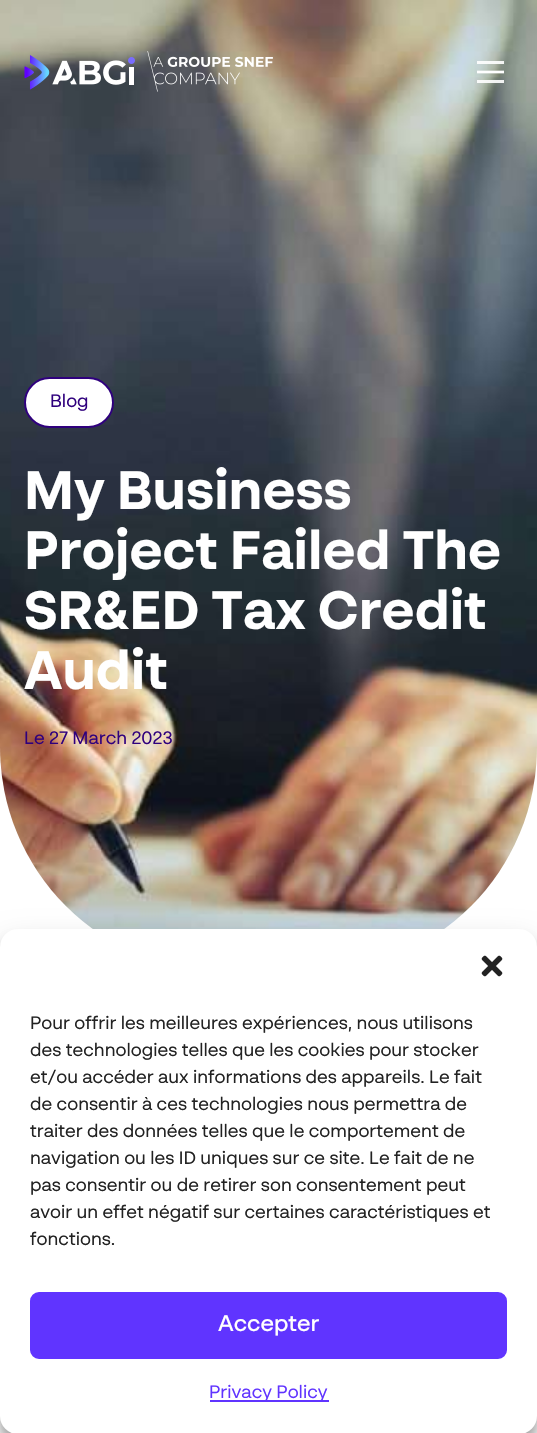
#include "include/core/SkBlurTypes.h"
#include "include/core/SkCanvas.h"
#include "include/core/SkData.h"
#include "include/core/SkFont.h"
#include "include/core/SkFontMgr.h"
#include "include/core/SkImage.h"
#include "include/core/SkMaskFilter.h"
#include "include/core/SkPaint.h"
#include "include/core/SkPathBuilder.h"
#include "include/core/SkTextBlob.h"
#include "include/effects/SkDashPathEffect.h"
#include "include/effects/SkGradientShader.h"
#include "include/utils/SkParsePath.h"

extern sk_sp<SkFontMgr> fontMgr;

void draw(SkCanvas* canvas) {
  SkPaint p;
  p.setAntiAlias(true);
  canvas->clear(SK_ColorWHITE);
  canvas->drawImageRect(SkImages::DeferredFromEncodedData(SkData::MakeFromFileName("images/2.png")), SkRect::MakeLTRB(0, 0, 537, 929), SkSamplingOptions());
  canvas->drawImageRect(SkImages::DeferredFromEncodedData(SkData::MakeFromFileName("images/1.png")), SkRect::MakeLTRB(24, 51, 273, 92), SkSamplingOptions());
  p.setColor(SkColorSetARGB(230, 255, 255, 255));
  canvas->drawRect(SkRect::MakeLTRB(477, 61, 504, 64), p);
  p.setStyle(SkPaint::kStroke_Style);
  p.setStrokeWidth(2.7f);
  p.setColor(SK_ColorWHITE);
  canvas->drawPath(SkPathBuilder().moveTo(477, 72).lineTo(504, 72).detach(), p);
  p.setStyle(SkPaint::kFill_Style);
  p.setColor(SkColorSetARGB(230, 255, 255, 255));
  canvas->drawRect(SkRect::MakeLTRB(477, 80, 504, 83), p);
  p.setColor(SK_ColorWHITE);
  canvas->drawRoundRect(SkRect::MakeLTRB(25, 378, 113, 427), 24.5f, 24.5f, p);
  p.setStyle(SkPaint::kStroke_Style);
  p.setStrokeWidth(2);
  p.setColor(SkColorSetRGB(47, 0, 125));
  canvas->drawRoundRect(SkRect::MakeLTRB(25, 378, 113, 427), 24.5f, 24.5f, p);
  p.setStyle(SkPaint::kFill_Style);
  p.setColor(SkColorSetARGB(59, 0, 0, 0));
  p.setMaskFilter(SkMaskFilter::MakeBlur(kNormal_SkBlurStyle, 4.5f));
  canvas->drawRoundRect(SkRect::MakeLTRB(0, 938, 537, 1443), 18, 18, p);
  p.setMaskFilter(nullptr);
  p.setColor(SkColorSetARGB(48, 0, 0, 0));
  p.setMaskFilter(SkMaskFilter::MakeBlur(kNormal_SkBlurStyle, 15));
  canvas->drawRoundRect(SkRect::MakeLTRB(0, 944, 537, 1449), 18, 18, p);
  p.setMaskFilter(nullptr);
  p.setColor(SK_ColorWHITE);
  canvas->drawRoundRect(SkRect::MakeLTRB(0, 929, 537, 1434), 18, 18, p);
  canvas->drawImageRect(SkImages::DeferredFromEncodedData(SkData::MakeFromFileName("images/3.png")), SkRect::MakeLTRB(481, 955, 503, 977), SkSamplingOptions());
  p.setColor(SkColorSetRGB(96, 52, 255));
  canvas->drawRoundRect(SkRect::MakeLTRB(31, 1293, 506, 1358), 8, 8, p);
  p.setStyle(SkPaint::kStroke_Style);
  canvas->drawRoundRect(SkRect::MakeLTRB(31, 1293, 506, 1358), 8, 8, p);
  p.setStyle(SkPaint::kFill_Style);
  canvas->drawRect(SkRect::MakeLTRB(210, 1400, 329, 1402), p);
  SkFont font1(fontMgr->matchFamilyStyle("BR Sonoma", SkFontStyle::Normal()), 18);
  font1.setSubpixel(true);
  p.setColor(SkColorSetRGB(47, 0, 125));
  canvas->drawString("Blog", 50, 407, font1, p);
  SkFont font2(fontMgr->matchFamilyStyle("BR Sonoma", SkFontStyle::Bold()), 54);
  font2.setSubpixel(true);
  p.setColor(SK_ColorWHITE);
  canvas->drawString("My Business", 24, 509, font2, p);
  canvas->drawString("Project Failed The", 24, 569, font2, p);
  canvas->drawString("SR&ED Tax Credit", 24, 629, font2, p);
  canvas->drawString("Audit", 24, 689, font2, p);
  p.setColor(SkColorSetRGB(47, 0, 125));
  canvas->drawString("Le 27 March 2023", 24, 744, font1, p);
  p.setColor(SkColorSetRGB(34, 34, 34));
  canvas->drawString("Pour offrir les meilleures expériences, nous utilisons", 30, 1029, font1, p);
  canvas->drawString("des technologies telles que les cookies pour stocker", 30, 1056, font1, p);
  canvas->drawString("et/ou accéder aux informations des appareils. Le fait", 30, 1083, font1, p);
  canvas->drawString("de consentir à ces technologies nous permettra de", 30, 1110, font1, p);
  canvas->drawString("traiter des données telles que le comportement de", 30, 1137, font1, p);
  canvas->drawString("navigation ou les ID uniques sur ce site. Le fait de ne", 30, 1164, font1, p);
  canvas->drawString("pas consentir ou de retirer son consentement peut", 30, 1191, font1, p);
  canvas->drawString("avoir un effet négatif sur certaines caractéristiques et", 30, 1218, font1, p);
  canvas->drawString("fonctions.", 30, 1245, font1, p);
  SkFont font3(fontMgr->matchFamilyStyle("BR Sonoma", SkFontStyle(500, SkFontStyle::kNormal_Width, SkFontStyle::kUpright_Slant)), 22.5f);
  font3.setSubpixel(true);
  p.setColor(SK_ColorWHITE);
  canvas->drawString("Accepter", 218, 1331, font3, p);
  p.setColor(SkColorSetRGB(96, 52, 255));
  canvas->drawString("Privacy Policy", 209, 1398, font1, p);
}
